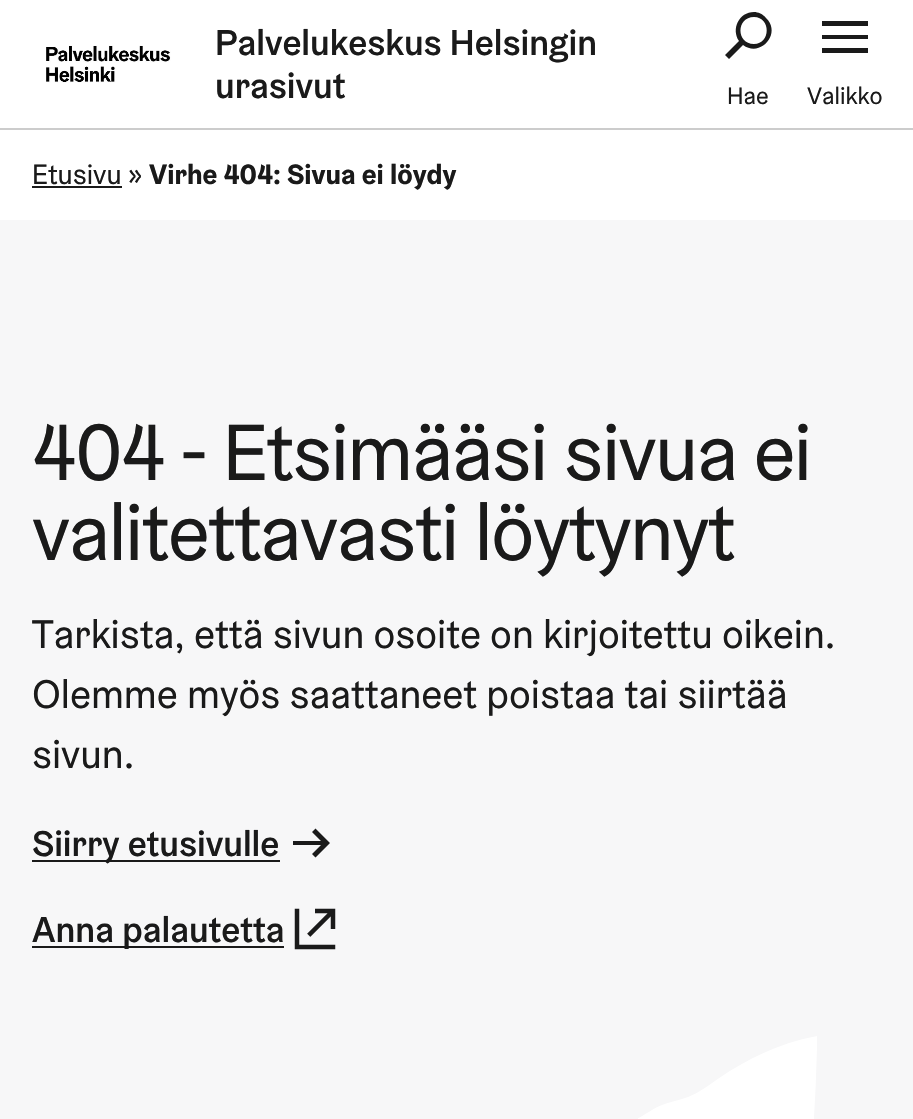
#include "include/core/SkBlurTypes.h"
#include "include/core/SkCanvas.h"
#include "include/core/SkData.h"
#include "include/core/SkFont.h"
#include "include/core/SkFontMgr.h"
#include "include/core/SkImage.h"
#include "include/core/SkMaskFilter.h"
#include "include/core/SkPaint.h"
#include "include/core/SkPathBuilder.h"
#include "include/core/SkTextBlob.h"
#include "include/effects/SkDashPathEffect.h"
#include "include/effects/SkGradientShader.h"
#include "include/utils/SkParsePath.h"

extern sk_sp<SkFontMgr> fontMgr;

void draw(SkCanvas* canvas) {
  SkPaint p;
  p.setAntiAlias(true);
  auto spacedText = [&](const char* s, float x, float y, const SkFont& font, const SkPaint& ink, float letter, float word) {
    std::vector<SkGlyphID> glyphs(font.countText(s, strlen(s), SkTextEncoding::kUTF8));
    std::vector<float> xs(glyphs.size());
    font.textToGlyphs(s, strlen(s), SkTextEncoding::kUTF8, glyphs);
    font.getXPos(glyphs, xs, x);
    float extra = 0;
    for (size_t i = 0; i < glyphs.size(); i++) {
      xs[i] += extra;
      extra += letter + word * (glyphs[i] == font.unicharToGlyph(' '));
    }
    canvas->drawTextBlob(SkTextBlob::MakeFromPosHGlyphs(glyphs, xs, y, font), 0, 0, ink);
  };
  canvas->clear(SK_ColorWHITE);
  p.setColor(SkColorSetRGB(204, 204, 204));
  canvas->drawRect(SkRect::MakeLTRB(0, 128, 913, 130), p);
  canvas->drawImageRect(SkImages::DeferredFromEncodedData(SkData::MakeFromFileName("images/1.png")), SkRect::MakeLTRB(46, 45, 171, 83), SkSamplingOptions());
  p.setColor(SkColorSetRGB(26, 26, 26));
  canvas->drawPath(SkPathBuilder(SkPathFillType::kEvenOdd).moveTo(754, 12).cubicTo(758, 12, 763, 14, 766, 18).cubicTo(782, 33, 761, 58, 743, 45).lineTo(729, 59).lineTo(725, 55).lineTo(739, 41).cubicTo(731, 29, 739, 12, 754, 12).close().moveTo(754, 17).cubicTo(736, 17, 736, 44, 754, 44).cubicTo(771, 44, 771, 17, 754, 17).close().detach(), p);
  canvas->drawPath(SkPathBuilder(SkPathFillType::kEvenOdd).moveTo(868, 48).lineTo(868, 53).lineTo(822, 53).lineTo(822, 48).close().moveTo(868, 35).lineTo(868, 39).lineTo(822, 39).lineTo(822, 35).close().moveTo(868, 21).lineTo(868, 26).lineTo(822, 26).lineTo(822, 21).close().detach(), p);
  canvas->drawRect(SkRect::MakeLTRB(32, 186, 122, 188), p);
  p.setColor(SkColorSetRGB(247, 247, 248));
  canvas->drawRect(SkRect::MakeLTRB(0, 220, 913, 1119), p);
  p.setColor(SkColorSetRGB(26, 26, 26));
  canvas->drawRect(SkRect::MakeLTRB(32, 860, 280, 862), p);
  canvas->drawPath(SkPathBuilder(SkPathFillType::kEvenOdd).moveTo(315.5f, 828.5f).lineTo(312, 832).lineTo(321, 841).lineTo(293, 841).lineTo(293, 845).lineTo(321, 845).lineTo(312, 854).lineTo(315.5f, 857.5f).lineTo(330, 843).close().detach(), p);
  canvas->drawRect(SkRect::MakeLTRB(32, 946, 284, 948), p);
  canvas->drawImageRect(SkImages::DeferredFromEncodedData(SkData::MakeFromFileName("images/2.png")), SkRect::MakeLTRB(294, 908, 336, 950), SkSamplingOptions());
  canvas->drawImageRect(SkImages::DeferredFromEncodedData(SkData::MakeFromFileName("images/3.png")), SkRect::MakeLTRB(638, 1036, 817, 1119), SkSamplingOptions());
  SkFont font1(fontMgr->matchFamilyStyle("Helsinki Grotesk", SkFontStyle(500, SkFontStyle::kNormal_Width, SkFontStyle::kUpright_Slant)), 36);
  font1.setSubpixel(true);
  canvas->drawString("Palvelukeskus Helsingin", 215, 55, font1, p);
  canvas->drawString("urasivut", 215, 98, font1, p);
  SkFont font2(fontMgr->matchFamilyStyle("Helsinki Grotesk", SkFontStyle::Normal()), 24);
  font2.setSubpixel(true);
  canvas->drawString("Hae", 727, 104, font2, p);
  canvas->drawString("Valikko", 807, 104, font2, p);
  SkFont font3(fontMgr->matchFamilyStyle("Helsinki Grotesk", SkFontStyle::Normal()), 28);
  font3.setSubpixel(true);
  canvas->drawString("Etusivu »", 32, 184, font3, p);
  SkFont font4(fontMgr->matchFamilyStyle("Helsinki Grotesk", SkFontStyle::Bold()), 28);
  font4.setSubpixel(true);
  canvas->drawString("Virhe 404: Sivua ei löydy", 149, 184, font4, p);
  SkFont font5(fontMgr->matchFamilyStyle("Helsinki Grotesk", SkFontStyle::Normal()), 80);
  font5.setSubpixel(true);
  spacedText("404 - Etsimääsi sivua ei", 32, 480, font5, p, -1.6f, 0);
  spacedText("valitettavasti löytynyt", 32, 560, font5, p, -1.6f, 0);
  SkFont font6(fontMgr->matchFamilyStyle("Helsinki Grotesk", SkFontStyle::Normal()), 40);
  font6.setSubpixel(true);
  canvas->drawString("Tarkista, että sivun osoite on kirjoitettu oikein.", 32, 648, font6, p);
  canvas->drawString("Olemme myös saattaneet poistaa tai siirtää", 32, 708, font6, p);
  canvas->drawString("sivun.", 32, 768, font6, p);
  canvas->drawString("Siirry etusivulle", 32, 856, font1, p);
  canvas->drawString("Anna palautetta", 32, 942, font1, p);
}
